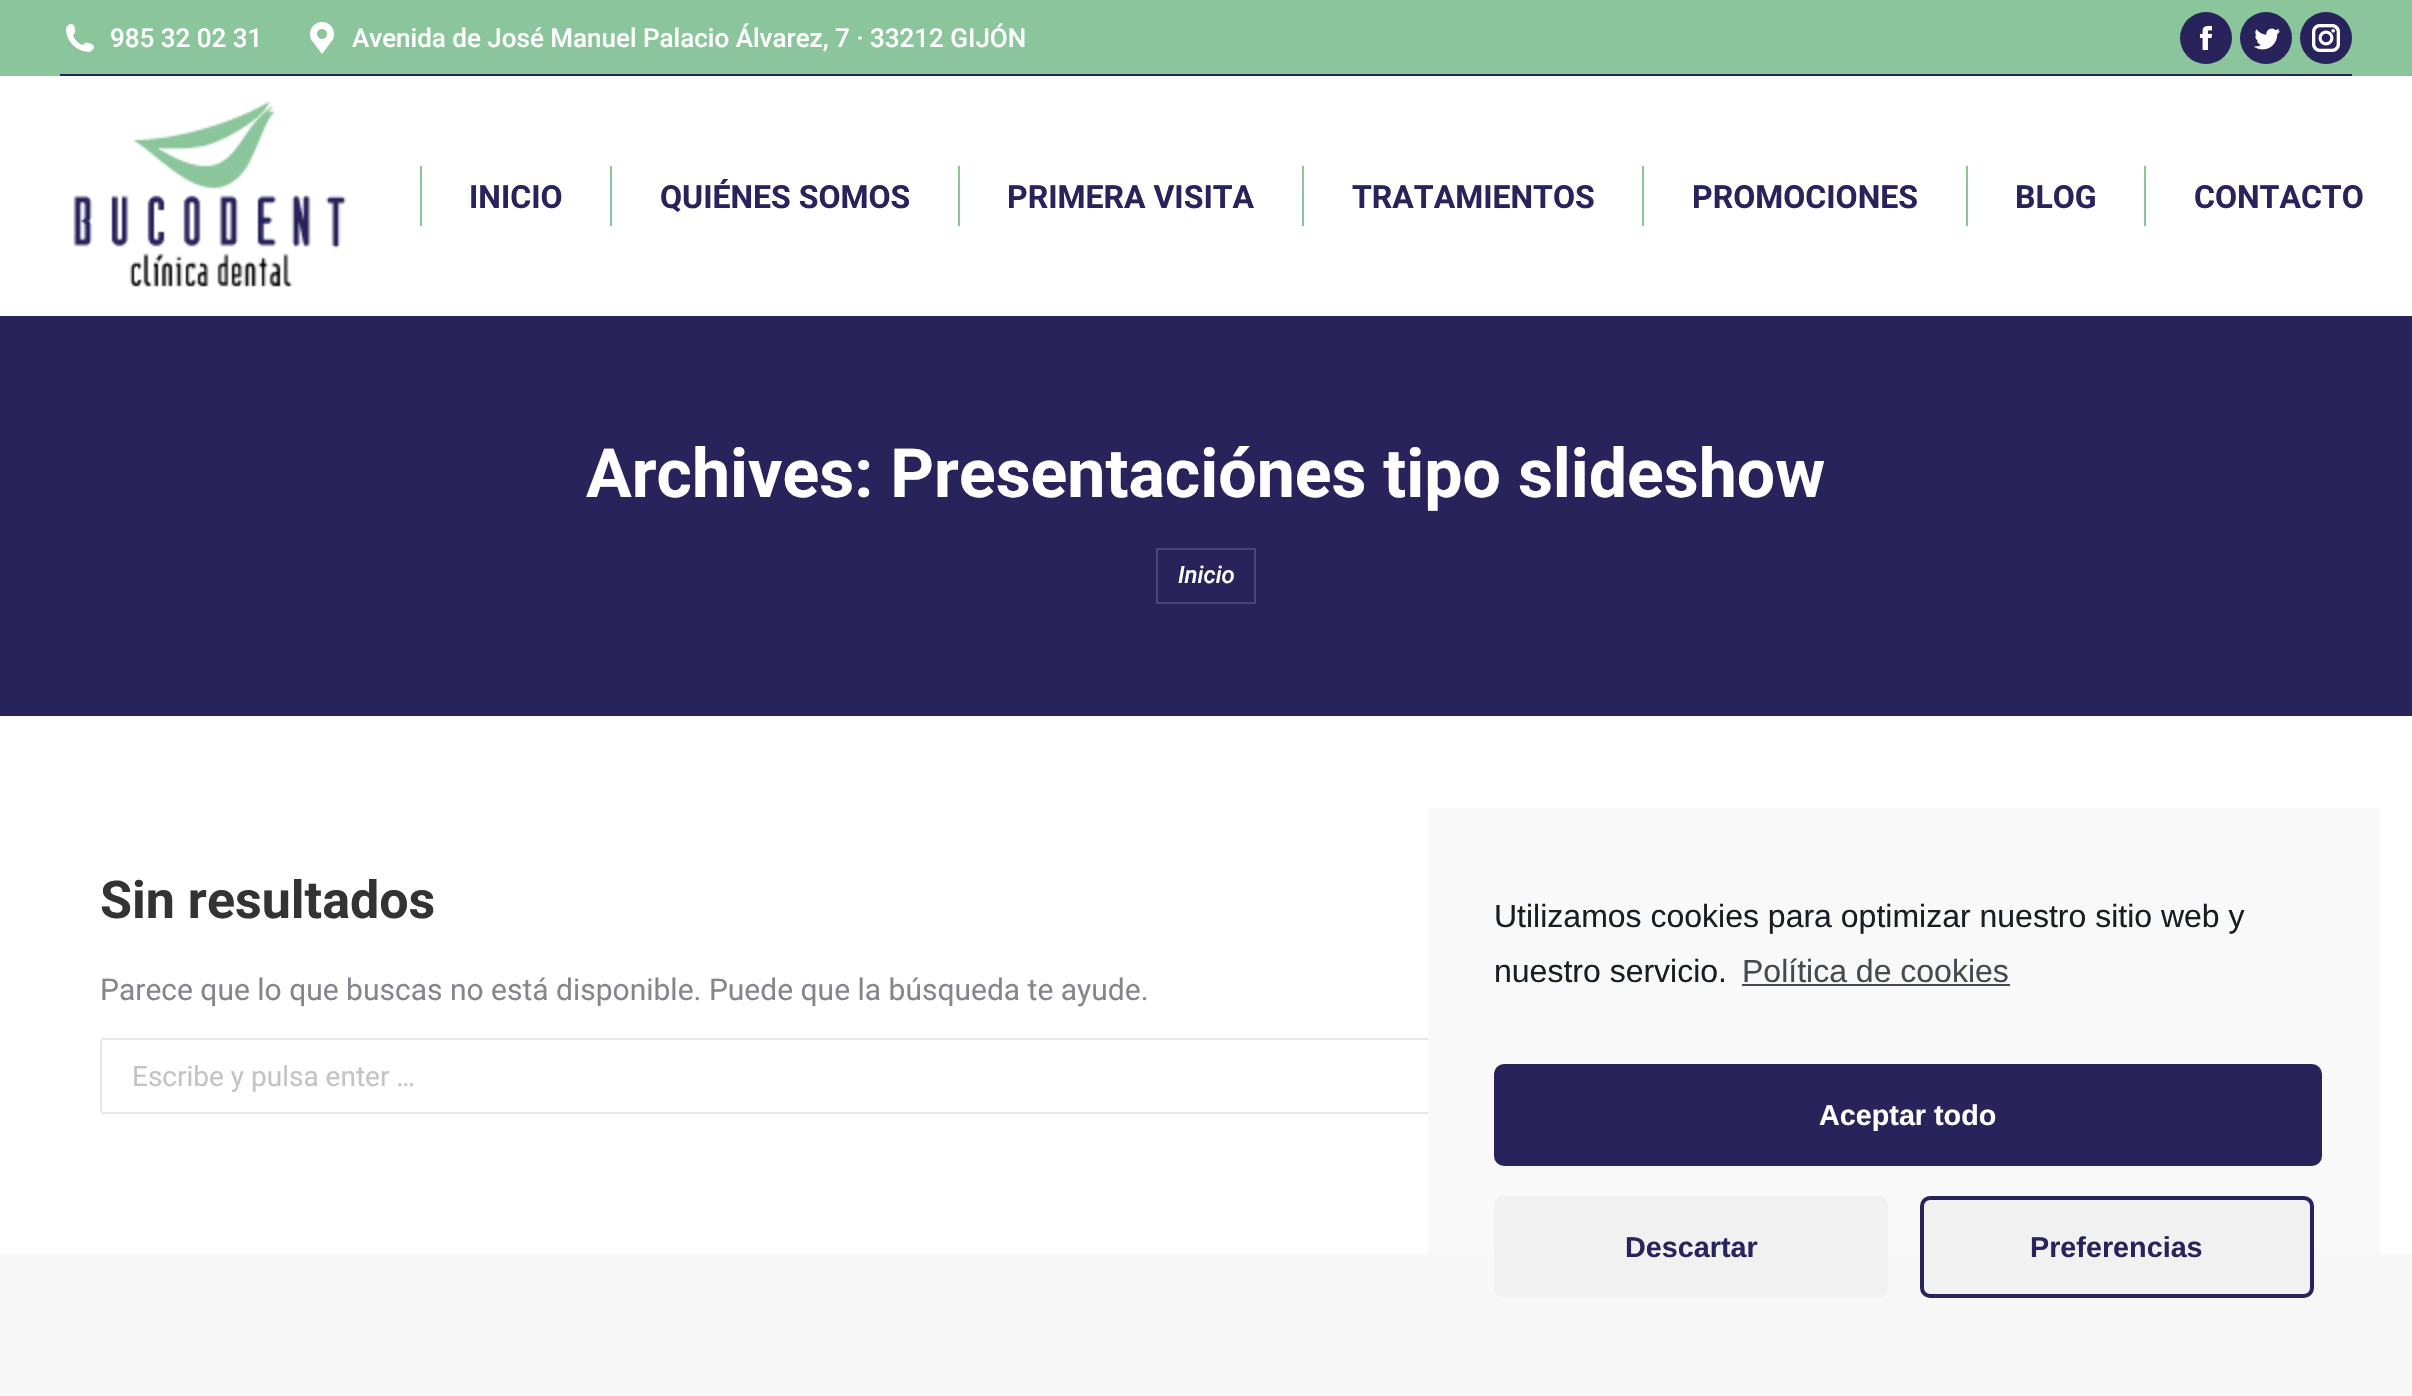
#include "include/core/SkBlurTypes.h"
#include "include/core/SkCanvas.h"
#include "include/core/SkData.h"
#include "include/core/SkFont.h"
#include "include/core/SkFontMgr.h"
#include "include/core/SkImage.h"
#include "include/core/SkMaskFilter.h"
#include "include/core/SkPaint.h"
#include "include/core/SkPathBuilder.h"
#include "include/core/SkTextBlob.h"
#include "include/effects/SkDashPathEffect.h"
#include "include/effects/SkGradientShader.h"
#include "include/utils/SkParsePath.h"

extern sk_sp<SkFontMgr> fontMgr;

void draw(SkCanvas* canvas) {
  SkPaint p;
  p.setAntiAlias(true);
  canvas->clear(SkColorSetRGB(247, 247, 247));
  p.setColor(SK_ColorWHITE);
  canvas->drawRect(SkRect::MakeLTRB(0, 76, 2412, 316), p);
  p.setColor(SkColorSetRGB(139, 197, 155));
  canvas->drawRect(SkRect::MakeLTRB(0, 0, 2412, 76), p);
  canvas->drawImageRect(SkImages::DeferredFromEncodedData(SkData::MakeFromFileName("images/1.png")), SkRect::MakeLTRB(66, 24, 94, 52), SkSamplingOptions());
  canvas->drawImageRect(SkImages::DeferredFromEncodedData(SkData::MakeFromFileName("images/2.png")), SkRect::MakeLTRB(310, 22, 334, 54), SkSamplingOptions());
  p.setColor(SkColorSetRGB(41, 35, 92));
  canvas->drawCircle(2206, 38, 26, p);
  canvas->drawImageRect(SkImages::DeferredFromEncodedData(SkData::MakeFromFileName("images/3.png")), SkRect::MakeLTRB(2199, 26, 2213, 50), SkSamplingOptions());
  canvas->drawCircle(2266, 38, 26, p);
  canvas->drawImageRect(SkImages::DeferredFromEncodedData(SkData::MakeFromFileName("images/4.png")), SkRect::MakeLTRB(2254, 28, 2280, 50), SkSamplingOptions());
  canvas->drawCircle(2326, 38, 26, p);
  canvas->drawImageRect(SkImages::DeferredFromEncodedData(SkData::MakeFromFileName("images/5.png")), SkRect::MakeLTRB(2312, 24, 2340, 52), SkSamplingOptions());
  canvas->drawRect(SkRect::MakeLTRB(60, 74, 2352, 76), p);
  canvas->drawImageRect(SkImages::DeferredFromEncodedData(SkData::MakeFromFileName("images/6.png")), SkRect::MakeLTRB(73, 101, 347, 287), SkSamplingOptions());
  p.setColor(SkColorSetRGB(139, 197, 155));
  canvas->drawRect(SkRect::MakeLTRB(420, 166, 422, 226), p);
  canvas->drawRect(SkRect::MakeLTRB(610, 166, 612, 226), p);
  canvas->drawRect(SkRect::MakeLTRB(958, 166, 960, 226), p);
  canvas->drawRect(SkRect::MakeLTRB(1302, 166, 1304, 226), p);
  canvas->drawRect(SkRect::MakeLTRB(1642, 166, 1644, 226), p);
  canvas->drawRect(SkRect::MakeLTRB(1966, 166, 1968, 226), p);
  canvas->drawRect(SkRect::MakeLTRB(2144, 166, 2146, 226), p);
  p.setColor(SK_ColorWHITE);
  canvas->drawRect(SkRect::MakeLTRB(0, 716, 2412, 1254), p);
  p.setColor(SkColorSetRGB(41, 35, 92));
  canvas->drawRect(SkRect::MakeLTRB(0, 316, 2412, 716), p);
  p.setStyle(SkPaint::kStroke_Style);
  p.setStrokeWidth(2);
  p.setColor(SkColorSetRGB(75, 70, 118));
  canvas->drawRect(SkRect::MakeLTRB(1157, 549, 1255, 603), p);
  p.setColor(SkColorSetRGB(231, 231, 231));
  canvas->drawRoundRect(SkRect::MakeLTRB(101, 1039, 2311, 1113), 3, 3, p);
  p.setStyle(SkPaint::kFill_Style);
  p.setColor(SkColorSetRGB(249, 249, 249));
  canvas->drawRect(SkRect::MakeLTRB(1428, 808, 2380, 1254), p);
  p.setColor(SkColorSetRGB(70, 74, 78));
  canvas->drawRect(SkRect::MakeLTRB(1742, 984, 2010, 986), p);
  p.setColor(SkColorSetRGB(41, 35, 92));
  canvas->drawRoundRect(SkRect::MakeLTRB(1496, 1066, 2320, 1164), 8, 8, p);
  p.setStyle(SkPaint::kStroke_Style);
  p.setStrokeWidth(4);
  canvas->drawRoundRect(SkRect::MakeLTRB(1496, 1066, 2320, 1164), 8, 8, p);
  p.setStyle(SkPaint::kFill_Style);
  p.setColor(SkColorSetRGB(241, 241, 241));
  canvas->drawRoundRect(SkRect::MakeLTRB(1494, 1196, 1888, 1298), 10, 10, p);
  canvas->drawRoundRect(SkRect::MakeLTRB(1922, 1198, 2312, 1296), 8, 8, p);
  p.setStyle(SkPaint::kStroke_Style);
  p.setColor(SkColorSetRGB(41, 35, 92));
  canvas->drawRoundRect(SkRect::MakeLTRB(1922, 1198, 2312, 1296), 8, 8, p);
  SkFont font1(fontMgr->matchFamilyStyle("Roboto", SkFontStyle(500, SkFontStyle::kNormal_Width, SkFontStyle::kUpright_Slant)), 26);
  font1.setSubpixel(true);
  p.setStyle(SkPaint::kFill_Style);
  p.setColor(SK_ColorWHITE);
  canvas->drawString("985 32 02 31", 110, 47, font1, p);
  canvas->drawString("Avenida de José Manuel Palacio Álvarez, 7 · 33212 GIJÓN", 352, 47, font1, p);
  SkFont font2(fontMgr->matchFamilyStyle("Roboto", SkFontStyle::Bold()), 32);
  font2.setSubpixel(true);
  p.setColor(SkColorSetRGB(41, 35, 92));
  canvas->drawString("INICIO", 469, 208, font2, p);
  canvas->drawString("QUIÉNES SOMOS", 660, 208, font2, p);
  canvas->drawString("PRIMERA VISITA", 1007, 208, font2, p);
  canvas->drawString("TRATAMIENTOS", 1352, 208, font2, p);
  canvas->drawString("PROMOCIONES", 1692, 208, font2, p);
  canvas->drawString("BLOG", 2015, 208, font2, p);
  canvas->drawString("CONTACTO", 2194, 208, font2, p);
  SkFont font3(fontMgr->matchFamilyStyle("Roboto", SkFontStyle::Bold()), 68);
  font3.setSubpixel(true);
  p.setColor(SK_ColorWHITE);
  canvas->drawString("Archives: Presentaciónes tipo slideshow", 586, 497, font3, p);
  SkFont font4(fontMgr->matchFamilyStyle("Roboto", SkFontStyle(500, SkFontStyle::kNormal_Width, SkFontStyle::kItalic_Slant)), 24);
  font4.setSubpixel(true);
  canvas->drawString("Inicio", 1178, 583, font4, p);
  SkFont font5(fontMgr->matchFamilyStyle("Roboto", SkFontStyle::Bold()), 52);
  font5.setSubpixel(true);
  p.setColor(SkColorSetRGB(51, 51, 51));
  canvas->drawString("Sin resultados", 100, 918, font5, p);
  SkFont font6(fontMgr->matchFamilyStyle("Roboto", SkFontStyle::Normal()), 30);
  font6.setSubpixel(true);
  p.setColor(SkColorSetRGB(133, 134, 140));
  canvas->drawString("Parece que lo que buscas no está disponible. Puede que la búsqueda te ayude.", 100, 1000, font6, p);
  SkFont font7(fontMgr->matchFamilyStyle("Roboto", SkFontStyle::Normal()), 28);
  font7.setSubpixel(true);
  p.setColor(SkColorSetRGB(194, 195, 198));
  canvas->drawString("Escribe y pulsa enter …", 132, 1086, font7, p);
  SkFont font8(fontMgr->matchFamilyStyle("Liberation Sans", SkFontStyle::Normal()), 32);
  font8.setSubpixel(true);
  p.setColor(SkColorSetRGB(25, 30, 35));
  canvas->drawString("Utilizamos cookies para optimizar nuestro sitio web y", 1494, 927, font8, p);
  canvas->drawString("nuestro servicio.", 1494, 982, font8, p);
  p.setColor(SkColorSetRGB(70, 74, 78));
  canvas->drawString("Política de cookies", 1742, 982, font8, p);
  SkFont font9(fontMgr->matchFamilyStyle("Liberation Sans", SkFontStyle::Bold()), 28.75f);
  font9.setSubpixel(true);
  p.setColor(SK_ColorWHITE);
  canvas->drawString("Aceptar todo", 1819, 1125, font9, p);
  p.setColor(SkColorSetRGB(41, 35, 92));
  canvas->drawString("Descartar", 1625, 1257, font9, p);
  canvas->drawString("Preferencias", 2030, 1257, font9, p);
}
